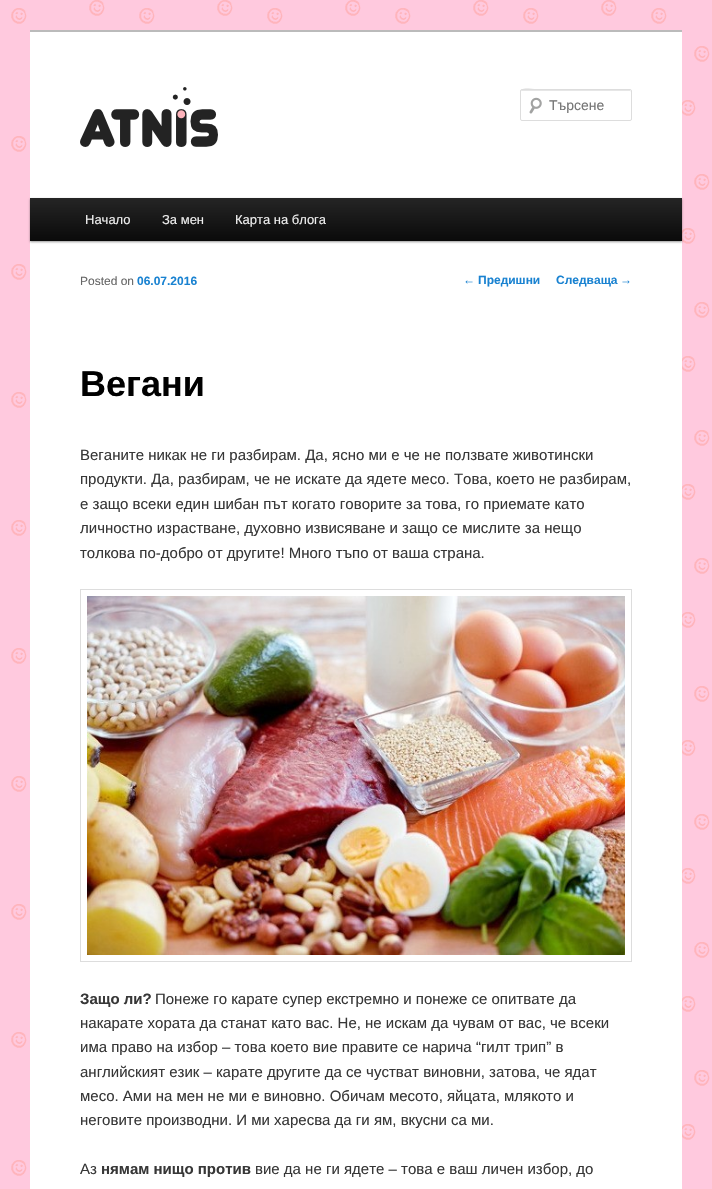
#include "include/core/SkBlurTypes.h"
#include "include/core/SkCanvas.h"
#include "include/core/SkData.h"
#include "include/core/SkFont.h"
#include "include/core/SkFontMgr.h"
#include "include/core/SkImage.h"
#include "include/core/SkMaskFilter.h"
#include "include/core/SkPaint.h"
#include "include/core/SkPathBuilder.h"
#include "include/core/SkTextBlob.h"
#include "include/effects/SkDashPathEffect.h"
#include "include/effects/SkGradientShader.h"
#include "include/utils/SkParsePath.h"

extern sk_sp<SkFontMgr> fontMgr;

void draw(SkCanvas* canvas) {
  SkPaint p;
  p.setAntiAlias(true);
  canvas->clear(SK_ColorWHITE);
  canvas->drawImageRect(SkImages::DeferredFromEncodedData(SkData::MakeFromFileName("images/1.png")), SkRect::MakeLTRB(0, 0, 712, 1189), SkSamplingOptions());
  p.setColor(SK_ColorWHITE);
  canvas->drawRect(SkRect::MakeLTRB(30, 32, 682, 1189), p);
  p.setColor(SkColorSetRGB(187, 187, 187));
  canvas->drawRect(SkRect::MakeLTRB(30, 30, 682, 32), p);
  canvas->drawImageRect(SkImages::DeferredFromEncodedData(SkData::MakeFromFileName("images/2.png")), SkRect::MakeLTRB(80, 87, 218, 147), SkSamplingOptions());
  canvas->drawImageRect(SkImages::DeferredFromEncodedData(SkData::MakeFromFileName("images/3.png")), SkRect::MakeLTRB(529, 97, 542, 114), SkSamplingOptions());
  p.setColor(SkColorSetRGB(230, 230, 230));
  canvas->drawPath(SkPathBuilder().moveTo(522, 91).lineTo(631, 91).lineTo(631, 92).lineTo(630, 90).lineTo(540, 90).cubicTo(536, 90, 521, 85, 521, 92).cubicTo(521, 91, 521, 91, 522, 91).close().detach(), p);
  p.setStyle(SkPaint::kStroke_Style);
  p.setStrokeWidth(1);
  p.setColor(SkColorSetRGB(221, 221, 221));
  canvas->drawRoundRect(SkRect::MakeLTRB(520.5f, 89.5f, 631.5f, 120.5f), 1.5f, 1.5f, p);
  p.setStyle(SkPaint::kFill_Style);
  p.setColor(SkColorSetARGB(102, 0, 0, 0));
  p.setMaskFilter(SkMaskFilter::MakeBlur(kNormal_SkBlurStyle, 1));
  canvas->drawRect(SkRect::MakeLTRB(30, 199, 682, 242), p);
  p.setMaskFilter(nullptr);
  {
    const SkColor colors[] = {SkColorSetRGB(37, 37, 37), SkColorSetRGB(10, 10, 10)};
    const float stops[] = {0, 1};
    const SkPoint ends[] = {{356, 198}, {356, 241}};
    p.setShader(SkGradientShader::MakeLinear(ends, colors, stops, 2, SkTileMode::kClamp));
    p.setAlpha(255);
  }
  canvas->drawRect(SkRect::MakeLTRB(30, 198, 682, 241), p);
  p.setStyle(SkPaint::kStroke_Style);
  p.setShader(nullptr);
  p.setColor(SkColorSetRGB(221, 221, 221));
  canvas->drawRect(SkRect::MakeLTRB(80.5f, 589.5f, 631.5f, 961.5f), p);
  canvas->drawImageRect(SkImages::DeferredFromEncodedData(SkData::MakeFromFileName("images/4.png")), SkRect::MakeLTRB(87, 596, 625, 955), SkSamplingOptions());
  SkFont font1(fontMgr->matchFamilyStyle("Liberation Sans", SkFontStyle::Normal()), 14);
  font1.setSubpixel(true);
  p.setStyle(SkPaint::kFill_Style);
  p.setColor(SkColorSetRGB(117, 117, 117));
  canvas->drawString("Търсене", 549, 110, font1, p);
  SkFont font2(fontMgr->matchFamilyStyle("Liberation Sans", SkFontStyle::Normal()), 13);
  font2.setSubpixel(true);
  p.setColor(SkColorSetRGB(238, 238, 238));
  canvas->drawString("Начало", 85, 224, font2, p);
  canvas->drawString("За мен", 162, 224, font2, p);
  canvas->drawString("Карта на блога", 235, 224, font2, p);
  SkFont font3(fontMgr->matchFamilyStyle("Liberation Sans", SkFontStyle::Normal()), 12);
  font3.setSubpixel(true);
  p.setColor(SkColorSetRGB(25, 130, 209));
  canvas->drawString("←", 463, 284, font3, p);
  SkFont font4(fontMgr->matchFamilyStyle("Liberation Sans", SkFontStyle::Bold()), 12);
  font4.setSubpixel(true);
  canvas->drawString("Предишни", 478, 284, font4, p);
  canvas->drawString("Следваща", 556, 284, font4, p);
  canvas->drawString("→", 620, 284, font3, p);
  p.setColor(SkColorSetRGB(102, 102, 102));
  canvas->drawString("Posted on", 80, 285, font3, p);
  p.setColor(SkColorSetRGB(25, 130, 209));
  canvas->drawString("06.07.2016", 137, 285, font4, p);
  SkFont font5(fontMgr->matchFamilyStyle("Liberation Sans", SkFontStyle::Bold()), 36);
  font5.setSubpixel(true);
  p.setColor(SK_ColorBLACK);
  canvas->drawString("Вегани", 80, 396, font5, p);
  SkFont font6(fontMgr->matchFamilyStyle("Liberation Sans", SkFontStyle::Normal()), 15);
  font6.setSubpixel(true);
  p.setColor(SkColorSetRGB(55, 55, 55));
  canvas->drawString("Веганите никак не ги разбирам. Да, ясно ми е че не ползвате животински", 80, 460, font6, p);
  canvas->drawString("продукти. Да, разбирам, че не искате да ядете месо. Това, което не разбирам,", 80, 484, font6, p);
  canvas->drawString("е защо всеки един шибан път когато говорите за това, го приемате като", 80, 509, font6, p);
  canvas->drawString("личностно израстване, духовно извисяване и защо се мислите за нещо", 80, 533, font6, p);
  canvas->drawString("толкова по-добро от другите! Много тъпо от ваша страна.", 80, 558, font6, p);
  SkFont font7(fontMgr->matchFamilyStyle("Liberation Sans", SkFontStyle::Bold()), 15);
  font7.setSubpixel(true);
  canvas->drawString("Защо ли?", 80, 1004, font7, p);
  canvas->drawString("Понеже го карате супер екстремно и понеже се опитвате да", 155, 1004, font6, p);
  canvas->drawString("накарате хората да станат като вас. Не, не искам да чувам от вас, че всеки", 80, 1028, font6, p);
  canvas->drawString("има право на избор – това което вие правите се нарича “гилт трип” в", 80, 1052, font6, p);
  canvas->drawString("английският език – карате другите да се чустват виновни, затова, че ядат", 80, 1077, font6, p);
  canvas->drawString("месо. Ами на мен не ми е виновно. Обичам месото, яйцата, млякото и", 80, 1101, font6, p);
  canvas->drawString("неговите производни. И ми харесва да ги ям, вкусни са ми.", 80, 1125, font6, p);
  canvas->drawString("Аз", 80, 1174, font6, p);
  canvas->drawString("нямам нищо против", 101, 1174, font7, p);
  canvas->drawString("вие да не ги ядете – това е ваш личен избор, до", 255, 1174, font6, p);
}
